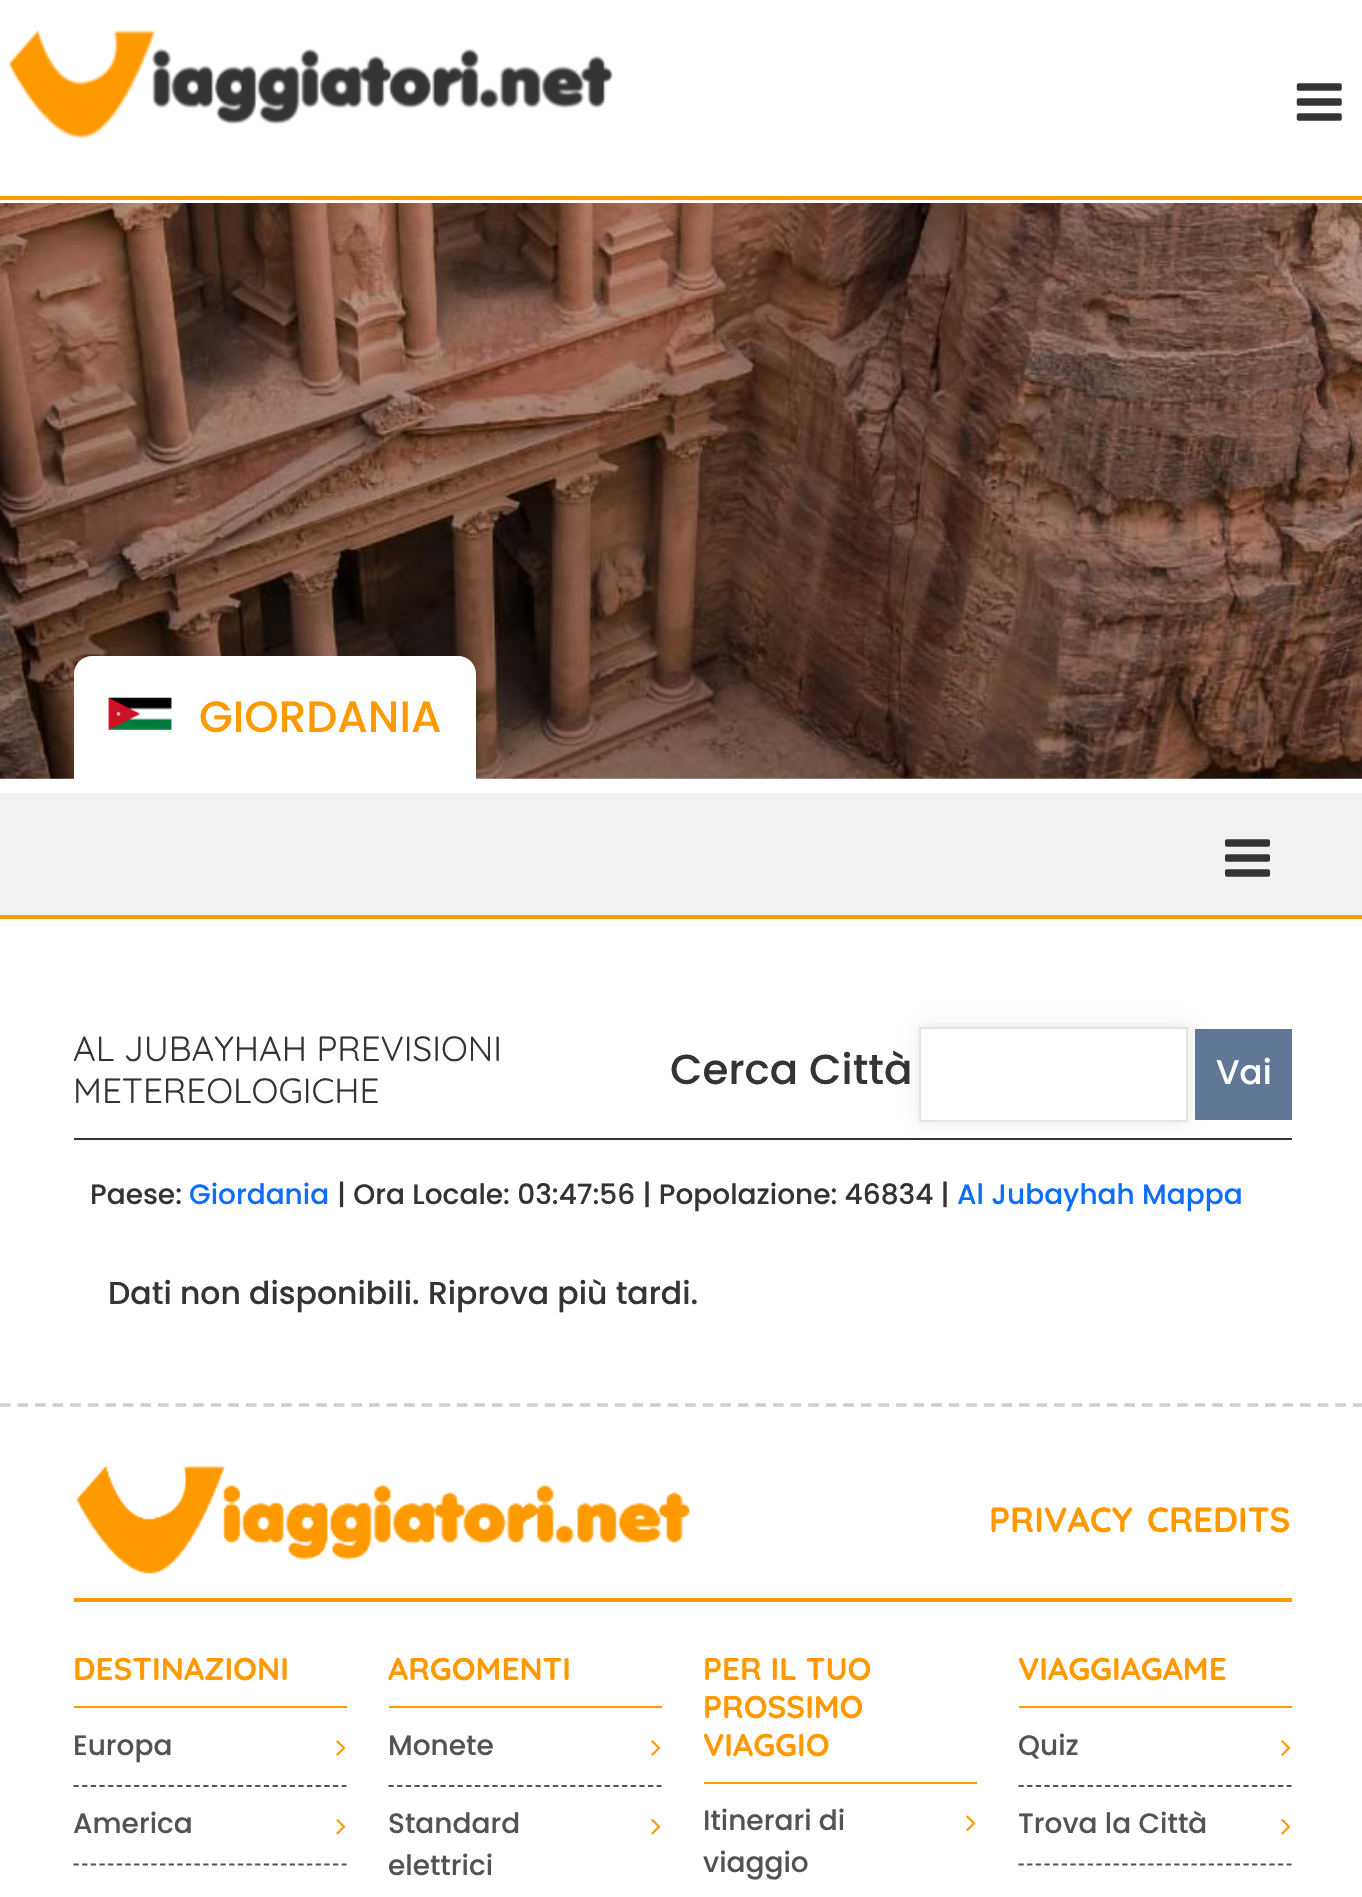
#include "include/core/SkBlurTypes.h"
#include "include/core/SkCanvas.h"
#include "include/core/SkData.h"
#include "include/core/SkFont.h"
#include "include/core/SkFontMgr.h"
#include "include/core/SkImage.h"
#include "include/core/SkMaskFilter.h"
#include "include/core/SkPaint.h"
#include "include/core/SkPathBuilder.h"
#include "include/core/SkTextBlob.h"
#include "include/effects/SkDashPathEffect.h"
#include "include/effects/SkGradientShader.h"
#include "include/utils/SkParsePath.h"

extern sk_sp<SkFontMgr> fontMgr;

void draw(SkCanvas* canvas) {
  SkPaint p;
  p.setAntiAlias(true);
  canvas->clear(SK_ColorWHITE);
  p.setColor(SkColorSetRGB(255, 153, 0));
  canvas->drawRect(SkRect::MakeLTRB(0, 196, 1362, 200), p);
  canvas->drawImageRect(SkImages::DeferredFromEncodedData(SkData::MakeFromFileName("images/1.png")), SkRect::MakeLTRB(8, 29, 613, 139), SkSamplingOptions());
  canvas->drawImageRect(SkImages::DeferredFromEncodedData(SkData::MakeFromFileName("images/2.png")), SkRect::MakeLTRB(1296, 83, 1342, 121), SkSamplingOptions());
  canvas->drawImageRect(SkImages::DeferredFromEncodedData(SkData::MakeFromFileName("images/3.png")), SkRect::MakeLTRB(0, 203, 1362, 779), SkSamplingOptions());
  p.setColor(SK_ColorWHITE);
  canvas->drawPath(SkPathBuilder().moveTo(92, 656).lineTo(458, 656).cubicTo(468, 656, 476, 664, 476, 674).lineTo(476, 779).lineTo(74, 779).lineTo(74, 674).cubicTo(74, 664, 82, 656, 92, 656).close().detach(), p);
  canvas->drawImageRect(SkImages::DeferredFromEncodedData(SkData::MakeFromFileName("images/4.png")), SkRect::MakeLTRB(108, 697, 172, 730), SkSamplingOptions());
  p.setColor(SkColorSetRGB(241, 241, 241));
  canvas->drawRect(SkRect::MakeLTRB(0, 793, 1362, 915), p);
  p.setColor(SkColorSetRGB(255, 153, 0));
  canvas->drawRect(SkRect::MakeLTRB(0, 915, 1362, 919), p);
  canvas->drawImageRect(SkImages::DeferredFromEncodedData(SkData::MakeFromFileName("images/5.png")), SkRect::MakeLTRB(1225, 839, 1270, 877), SkSamplingOptions());
  p.setColor(SkColorSetRGB(52, 52, 52));
  canvas->drawRect(SkRect::MakeLTRB(74, 1138, 1292, 1140), p);
  p.setColor(SkColorSetARGB(26, 0, 0, 0));
  p.setMaskFilter(SkMaskFilter::MakeBlur(kNormal_SkBlurStyle, 7));
  canvas->drawRect(SkRect::MakeLTRB(919, 1027, 1188, 1122), p);
  p.setMaskFilter(nullptr);
  p.setColor(SK_ColorWHITE);
  canvas->drawRect(SkRect::MakeLTRB(920, 1028, 1187, 1121), p);
  p.setStyle(SkPaint::kStroke_Style);
  p.setStrokeWidth(2);
  p.setColor(SkColorSetRGB(229, 229, 229));
  canvas->drawRect(SkRect::MakeLTRB(920, 1028, 1187, 1121), p);
  p.setStyle(SkPaint::kFill_Style);
  p.setColor(SkColorSetRGB(97, 119, 152));
  canvas->drawRect(SkRect::MakeLTRB(1195, 1029, 1292, 1120), p);
  p.setStyle(SkPaint::kStroke_Style);
  p.setStrokeWidth(3.5f);
  p.setColor(SkColorSetRGB(206, 206, 206));
  p.setPathEffect(SkDashPathEffect::Make({{10.5f, 7.07f}}, 0));
  canvas->drawPath(SkPathBuilder().moveTo(0, 1405).lineTo(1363, 1405).detach(), p);
  p.setPathEffect(nullptr);
  p.setStyle(SkPaint::kFill_Style);
  p.setColor(SkColorSetRGB(255, 153, 0));
  canvas->drawRect(SkRect::MakeLTRB(74, 1598, 1292, 1602), p);
  canvas->drawImageRect(SkImages::DeferredFromEncodedData(SkData::MakeFromFileName("images/6.png")), SkRect::MakeLTRB(76, 1466, 690, 1574), SkSamplingOptions());
  canvas->drawRect(SkRect::MakeLTRB(74, 1706, 347, 1708), p);
  p.setStyle(SkPaint::kStroke_Style);
  p.setStrokeWidth(1.8f);
  p.setColor(SkColorSetRGB(83, 83, 83));
  p.setPathEffect(SkDashPathEffect::Make({{5.25f, 3.4f}}, 0));
  canvas->drawPath(SkPathBuilder().moveTo(73.5f, 1786).lineTo(346.5f, 1786).detach(), p);
  p.setPathEffect(nullptr);
  canvas->drawImageRect(SkImages::DeferredFromEncodedData(SkData::MakeFromFileName("images/7.png")), SkRect::MakeLTRB(336, 1740, 346, 1756), SkSamplingOptions());
  p.setPathEffect(SkDashPathEffect::Make({{5.25f, 3.4f}}, 0));
  canvas->drawPath(SkPathBuilder().moveTo(73.5f, 1864.5f).lineTo(346.5f, 1864.5f).detach(), p);
  p.setPathEffect(nullptr);
  canvas->drawImageRect(SkImages::DeferredFromEncodedData(SkData::MakeFromFileName("images/8.png")), SkRect::MakeLTRB(336, 1819, 346, 1835), SkSamplingOptions());
  p.setStyle(SkPaint::kFill_Style);
  p.setColor(SkColorSetRGB(255, 153, 0));
  canvas->drawRect(SkRect::MakeLTRB(389, 1706, 662, 1708), p);
  p.setStyle(SkPaint::kStroke_Style);
  p.setColor(SkColorSetRGB(83, 83, 83));
  p.setPathEffect(SkDashPathEffect::Make({{5.25f, 3.4f}}, 0));
  canvas->drawPath(SkPathBuilder().moveTo(388.5f, 1786).lineTo(661.5f, 1786).detach(), p);
  p.setPathEffect(nullptr);
  canvas->drawImageRect(SkImages::DeferredFromEncodedData(SkData::MakeFromFileName("images/7.png")), SkRect::MakeLTRB(651, 1740, 661, 1756), SkSamplingOptions());
  canvas->drawImageRect(SkImages::DeferredFromEncodedData(SkData::MakeFromFileName("images/8.png")), SkRect::MakeLTRB(651, 1819, 661, 1835), SkSamplingOptions());
  p.setStyle(SkPaint::kFill_Style);
  p.setColor(SkColorSetRGB(255, 153, 0));
  canvas->drawRect(SkRect::MakeLTRB(704, 1782, 977, 1784), p);
  canvas->drawImageRect(SkImages::DeferredFromEncodedData(SkData::MakeFromFileName("images/9.png")), SkRect::MakeLTRB(966, 1815, 976, 1831), SkSamplingOptions());
  canvas->drawRect(SkRect::MakeLTRB(1019, 1706, 1292, 1708), p);
  p.setStyle(SkPaint::kStroke_Style);
  p.setColor(SkColorSetRGB(83, 83, 83));
  p.setPathEffect(SkDashPathEffect::Make({{5.25f, 3.4f}}, 0));
  canvas->drawPath(SkPathBuilder().moveTo(1018.5f, 1786).lineTo(1291.5f, 1786).detach(), p);
  p.setPathEffect(nullptr);
  canvas->drawImageRect(SkImages::DeferredFromEncodedData(SkData::MakeFromFileName("images/7.png")), SkRect::MakeLTRB(1281, 1740, 1291, 1756), SkSamplingOptions());
  p.setPathEffect(SkDashPathEffect::Make({{5.25f, 3.4f}}, 0));
  canvas->drawPath(SkPathBuilder().moveTo(1018.5f, 1864.5f).lineTo(1291.5f, 1864.5f).detach(), p);
  p.setPathEffect(nullptr);
  canvas->drawImageRect(SkImages::DeferredFromEncodedData(SkData::MakeFromFileName("images/8.png")), SkRect::MakeLTRB(1281, 1819, 1291, 1835), SkSamplingOptions());
  SkFont font1(fontMgr->matchFamilyStyle("Poppins", SkFontStyle(500, SkFontStyle::kNormal_Width, SkFontStyle::kUpright_Slant)), 43.75f);
  font1.setSubpixel(true);
  p.setStyle(SkPaint::kFill_Style);
  p.setColor(SkColorSetRGB(255, 153, 0));
  canvas->drawString("GIORDANIA", 199, 732, font1, p);
  SkFont font2(fontMgr->matchFamilyStyle("Quicksand", SkFontStyle::Normal()), 35);
  font2.setSubpixel(true);
  p.setColor(SkColorSetRGB(52, 52, 52));
  canvas->drawString("AL JUBAYHAH PREVISIONI", 73, 1061, font2, p);
  canvas->drawString("METEREOLOGICHE", 73, 1103, font2, p);
  SkFont font3(fontMgr->matchFamilyStyle("Poppins", SkFontStyle(500, SkFontStyle::kNormal_Width, SkFontStyle::kUpright_Slant)), 28);
  font3.setSubpixel(true);
  canvas->drawString("Paese:", 90, 1204, font3, p);
  p.setColor(SkColorSetRGB(13, 110, 253));
  canvas->drawString("Giordania", 189, 1204, font3, p);
  p.setColor(SkColorSetRGB(52, 52, 52));
  canvas->drawString("| Ora Locale: 03:47:56 | Popolazione: 46834 |", 337, 1204, font3, p);
  p.setColor(SkColorSetRGB(13, 110, 253));
  canvas->drawString("Al Jubayhah Mappa", 957, 1204, font3, p);
  SkFont font4(fontMgr->matchFamilyStyle("Poppins", SkFontStyle(500, SkFontStyle::kNormal_Width, SkFontStyle::kUpright_Slant)), 31.5f);
  font4.setSubpixel(true);
  p.setColor(SkColorSetRGB(52, 52, 52));
  canvas->drawString("Dati non disponibili. Riprova più tardi.", 108, 1304, font4, p);
  SkFont font5(fontMgr->matchFamilyStyle("Poppins", SkFontStyle(500, SkFontStyle::kNormal_Width, SkFontStyle::kUpright_Slant)), 42);
  font5.setSubpixel(true);
  canvas->drawString("Cerca Città", 670, 1084, font5, p);
  SkFont font6(fontMgr->matchFamilyStyle("Poppins", SkFontStyle(500, SkFontStyle::kNormal_Width, SkFontStyle::kUpright_Slant)), 34);
  font6.setSubpixel(true);
  p.setColor(SK_ColorWHITE);
  canvas->drawString("Vai", 1216, 1084, font6, p);
  SkFont font7(fontMgr->matchFamilyStyle("Quicksand", SkFontStyle::Bold()), 35);
  font7.setSubpixel(true);
  p.setColor(SkColorSetRGB(255, 153, 0));
  canvas->drawString("PRIVACY", 989, 1532, font7, p);
  canvas->drawString("CREDITS", 1147, 1532, font7, p);
  SkFont font8(fontMgr->matchFamilyStyle("Quicksand", SkFontStyle::Bold()), 31.5f);
  font8.setSubpixel(true);
  canvas->drawString("DESTINAZIONI", 73, 1680, font8, p);
  p.setColor(SkColorSetRGB(83, 83, 83));
  canvas->drawString("Europa", 73, 1755, font3, p);
  canvas->drawString("America", 73, 1833, font3, p);
  p.setColor(SkColorSetRGB(255, 153, 0));
  canvas->drawString("ARGOMENTI", 388, 1680, font8, p);
  p.setColor(SkColorSetRGB(83, 83, 83));
  canvas->drawString("Monete", 388, 1755, font3, p);
  canvas->drawString("Standard", 388, 1833, font3, p);
  canvas->drawString("elettrici", 388, 1875, font3, p);
  p.setColor(SkColorSetRGB(255, 153, 0));
  canvas->drawString("PER IL TUO", 703, 1680, font8, p);
  canvas->drawString("PROSSIMO", 703, 1718, font8, p);
  canvas->drawString("VIAGGIO", 703, 1756, font8, p);
  p.setColor(SkColorSetRGB(83, 83, 83));
  canvas->drawString("Itinerari di", 703, 1830, font3, p);
  canvas->drawString("viaggio", 703, 1872, font3, p);
  p.setColor(SkColorSetRGB(255, 153, 0));
  canvas->drawString("VIAGGIAGAME", 1018, 1680, font8, p);
  p.setColor(SkColorSetRGB(83, 83, 83));
  canvas->drawString("Quiz", 1018, 1755, font3, p);
  canvas->drawString("Trova la Città", 1018, 1833, font3, p);
}
